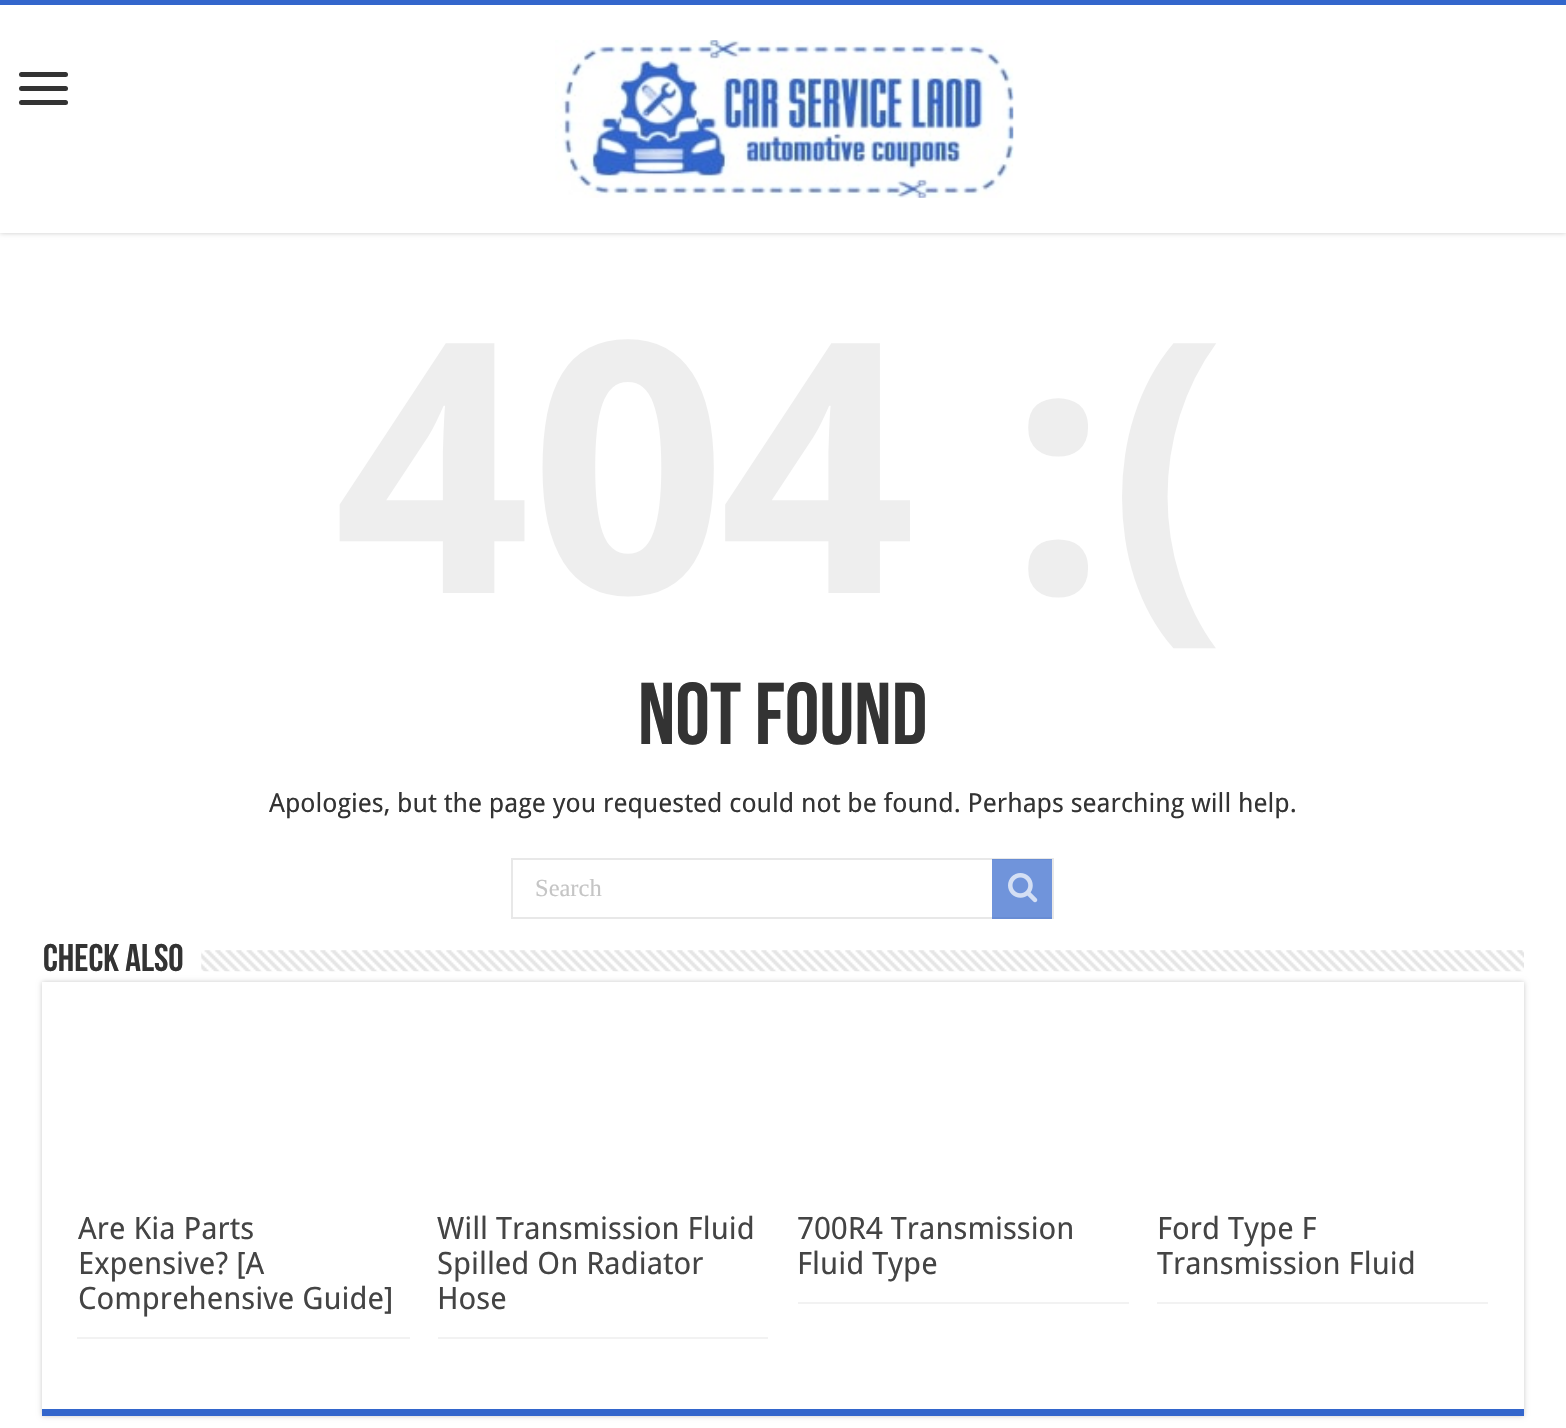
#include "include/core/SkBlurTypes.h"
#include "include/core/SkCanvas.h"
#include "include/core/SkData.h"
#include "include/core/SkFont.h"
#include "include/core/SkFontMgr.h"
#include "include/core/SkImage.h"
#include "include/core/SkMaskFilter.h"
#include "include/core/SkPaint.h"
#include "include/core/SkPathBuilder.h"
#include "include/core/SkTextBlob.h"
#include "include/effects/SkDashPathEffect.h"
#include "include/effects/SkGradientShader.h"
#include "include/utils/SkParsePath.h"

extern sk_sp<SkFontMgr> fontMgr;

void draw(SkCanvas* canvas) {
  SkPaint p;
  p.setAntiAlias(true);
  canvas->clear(SK_ColorWHITE);
  p.setColor(SkColorSetRGB(202, 202, 202));
  p.setMaskFilter(SkMaskFilter::MakeBlur(kNormal_SkBlurStyle, 2.5f));
  canvas->drawRect(SkRect::MakeLTRB(0, 0, 1566, 233), p);
  p.setMaskFilter(nullptr);
  p.setColor(SK_ColorWHITE);
  canvas->drawRect(SkRect::MakeLTRB(0, 5, 1566, 233), p);
  p.setColor(SkColorSetRGB(51, 102, 204));
  canvas->drawRect(SkRect::MakeLTRB(0, 0, 1566, 5), p);
  p.setColor(SkColorSetRGB(51, 51, 51));
  canvas->drawRoundRect(SkRect::MakeLTRB(19, 72, 68, 77), 2.5f, 2.5f, p);
  canvas->drawRoundRect(SkRect::MakeLTRB(19, 86, 68, 91), 2.5f, 2.5f, p);
  canvas->drawRoundRect(SkRect::MakeLTRB(19, 100, 68, 105), 2.5f, 2.5f, p);
  canvas->drawImageRect(SkImages::DeferredFromEncodedData(SkData::MakeFromFileName("images/1.png")), SkRect::MakeLTRB(555, 40, 1014, 198), SkSamplingOptions());
  p.setStyle(SkPaint::kStroke_Style);
  p.setStrokeWidth(2);
  p.setColor(SkColorSetRGB(232, 232, 232));
  canvas->drawRect(SkRect::MakeLTRB(512, 859, 1053, 918), p);
  p.setStyle(SkPaint::kFill_Style);
  p.setColor(SkColorSetARGB(179, 51, 102, 204));
  canvas->drawRect(SkRect::MakeLTRB(992, 859, 1052, 919), p);
  canvas->drawImageRect(SkImages::DeferredFromEncodedData(SkData::MakeFromFileName("images/2.png")), SkRect::MakeLTRB(1008, 873, 1038, 903), SkSamplingOptions());
  canvas->drawImageRect(SkImages::DeferredFromEncodedData(SkData::MakeFromFileName("images/3.png")), SkRect::MakeLTRB(201, 950, 1524, 972), SkSamplingOptions());
  p.setColor(SkColorSetRGB(202, 202, 202));
  p.setMaskFilter(SkMaskFilter::MakeBlur(kNormal_SkBlurStyle, 2.5f));
  canvas->drawRect(SkRect::MakeLTRB(42, 982, 1524, 1416), p);
  p.setMaskFilter(nullptr);
  p.setColor(SK_ColorWHITE);
  canvas->drawRect(SkRect::MakeLTRB(42, 982, 1524, 1409), p);
  p.setColor(SkColorSetRGB(51, 102, 204));
  canvas->drawRect(SkRect::MakeLTRB(42, 1409, 1524, 1416), p);
  p.setColor(SkColorSetRGB(242, 242, 242));
  canvas->drawRect(SkRect::MakeLTRB(77, 1337, 410, 1339), p);
  canvas->drawRect(SkRect::MakeLTRB(438, 1337, 768, 1339), p);
  canvas->drawRect(SkRect::MakeLTRB(798, 1302, 1129, 1304), p);
  canvas->drawRect(SkRect::MakeLTRB(1157, 1302, 1488, 1304), p);
  SkFont font1(fontMgr->matchFamilyStyle("Droid Sans", SkFontStyle::Bold()), 350);
  font1.setSubpixel(true);
  p.setColor(SkColorSetRGB(238, 238, 238));
  canvas->drawString("404 :(", 339, 593, font1, p);
  SkFont font2(fontMgr->matchFamilyStyle("Bebas Neue", SkFontStyle::Bold()), 87.5f);
  font2.setSubpixel(true);
  p.setColor(SkColorSetRGB(51, 51, 51));
  canvas->drawString("Not Found", 638, 744, font2, p);
  SkFont font3(fontMgr->matchFamilyStyle("Droid Sans", SkFontStyle::Normal()), 26.25f);
  font3.setSubpixel(true);
  canvas->drawString("Apologies, but the page you requested could not be found. Perhaps searching will help.", 269, 812, font3, p);
  SkFont font4(fontMgr->matchFamilyStyle("Liberation Serif", SkFontStyle::Normal()), 24.5f);
  font4.setSubpixel(true);
  p.setColor(SkColorSetRGB(197, 197, 197));
  canvas->drawString("Search", 535, 896, font4, p);
  SkFont font5(fontMgr->matchFamilyStyle("Bebas Neue", SkFontStyle::Bold()), 38.5f);
  font5.setSubpixel(true);
  p.setColor(SkColorSetRGB(51, 51, 51));
  canvas->drawString("Check Also", 43, 971, font5, p);
  SkFont font6(fontMgr->matchFamilyStyle("Droid Sans", SkFontStyle::Normal()), 30.75f);
  font6.setSubpixel(true);
  p.setColor(SkColorSetRGB(68, 68, 68));
  canvas->drawString("Are Kia Parts", 78, 1239, font6, p);
  canvas->drawString("Expensive? [A", 78, 1274, font6, p);
  canvas->drawString("Comprehensive Guide]", 78, 1309, font6, p);
  canvas->drawString("Will Transmission Fluid", 437, 1239, font6, p);
  canvas->drawString("Spilled On Radiator", 437, 1274, font6, p);
  canvas->drawString("Hose", 437, 1309, font6, p);
  canvas->drawString("700R4 Transmission", 797, 1239, font6, p);
  canvas->drawString("Fluid Type", 797, 1274, font6, p);
  canvas->drawString("Ford Type F", 1157, 1239, font6, p);
  canvas->drawString("Transmission Fluid", 1157, 1274, font6, p);
}
